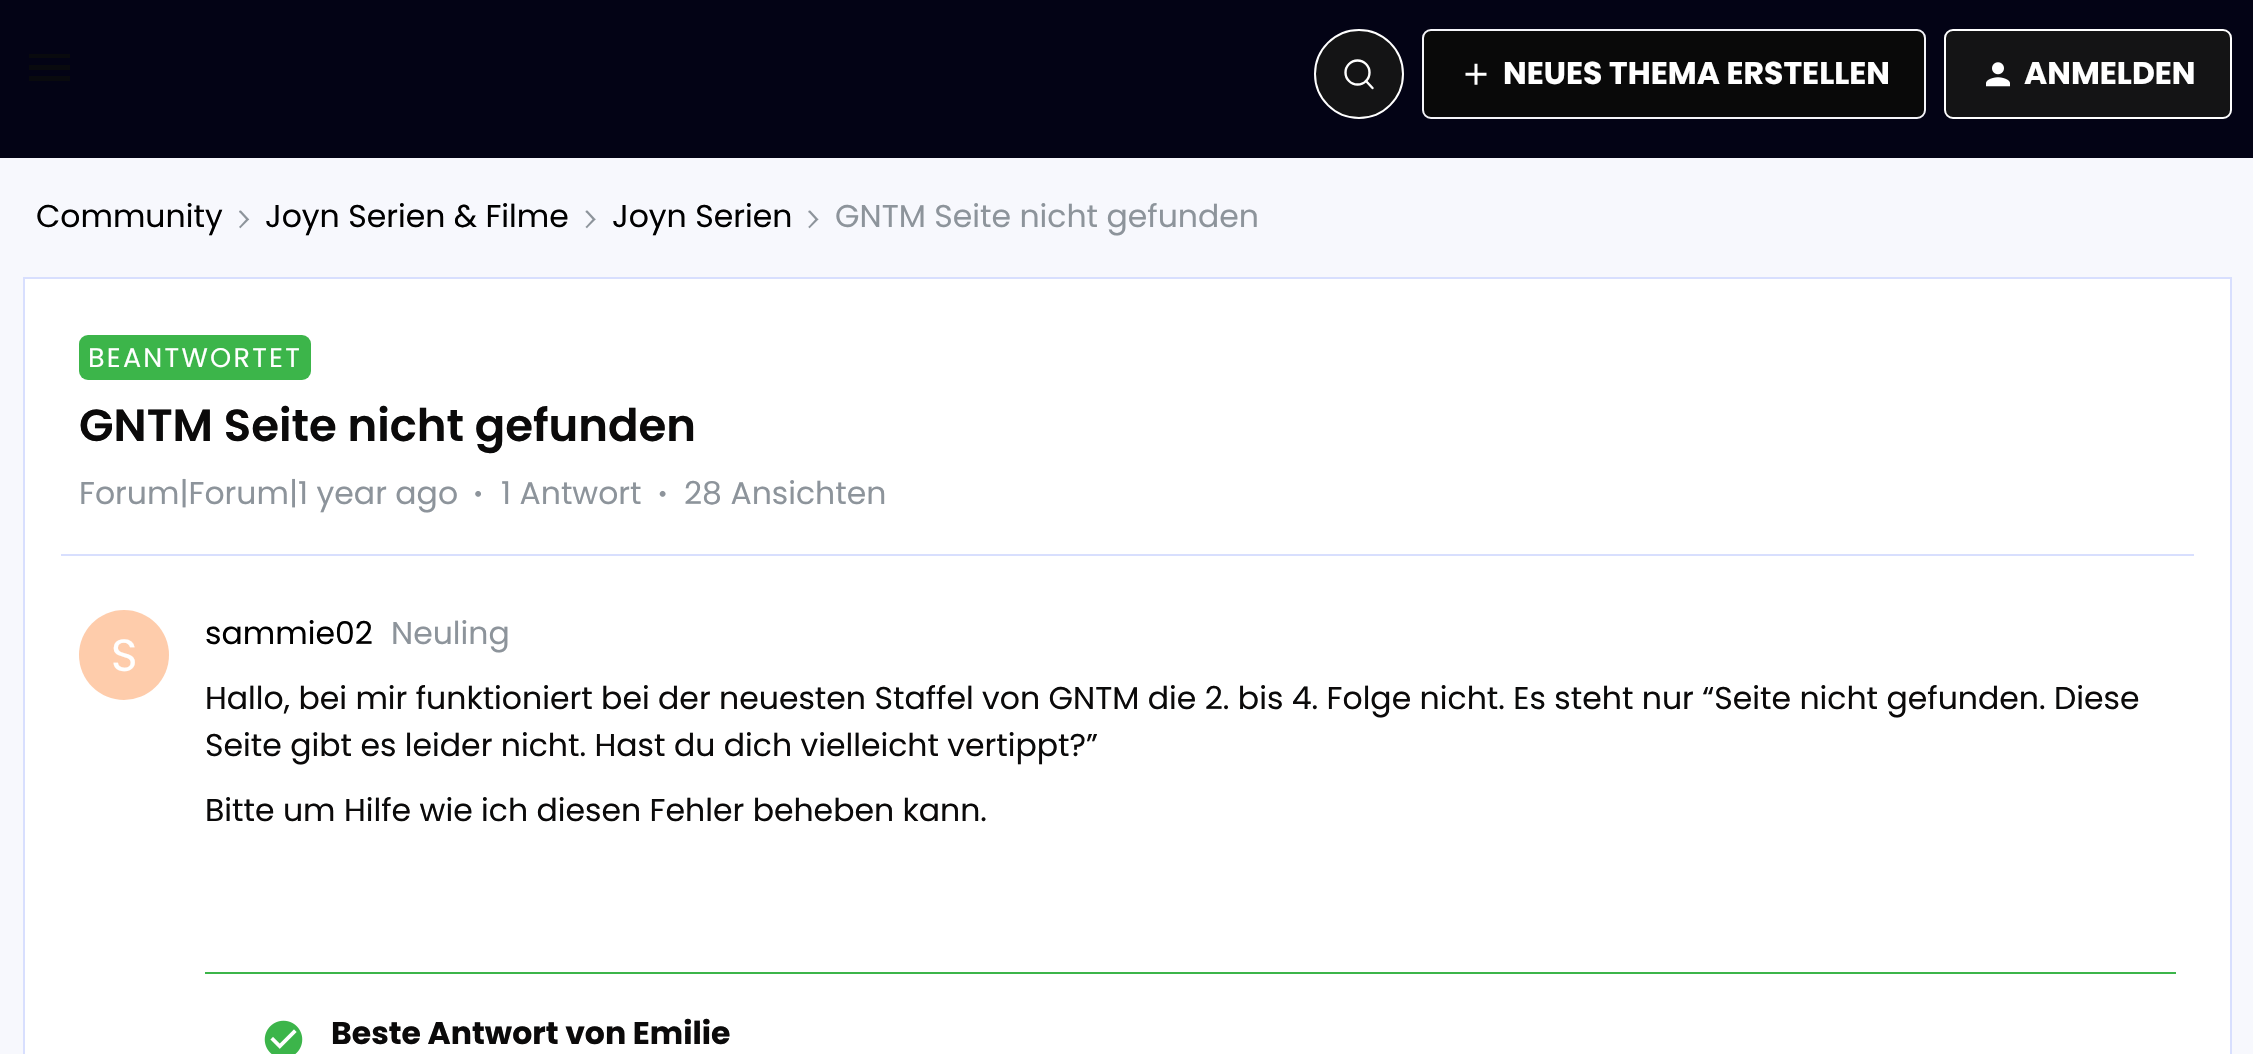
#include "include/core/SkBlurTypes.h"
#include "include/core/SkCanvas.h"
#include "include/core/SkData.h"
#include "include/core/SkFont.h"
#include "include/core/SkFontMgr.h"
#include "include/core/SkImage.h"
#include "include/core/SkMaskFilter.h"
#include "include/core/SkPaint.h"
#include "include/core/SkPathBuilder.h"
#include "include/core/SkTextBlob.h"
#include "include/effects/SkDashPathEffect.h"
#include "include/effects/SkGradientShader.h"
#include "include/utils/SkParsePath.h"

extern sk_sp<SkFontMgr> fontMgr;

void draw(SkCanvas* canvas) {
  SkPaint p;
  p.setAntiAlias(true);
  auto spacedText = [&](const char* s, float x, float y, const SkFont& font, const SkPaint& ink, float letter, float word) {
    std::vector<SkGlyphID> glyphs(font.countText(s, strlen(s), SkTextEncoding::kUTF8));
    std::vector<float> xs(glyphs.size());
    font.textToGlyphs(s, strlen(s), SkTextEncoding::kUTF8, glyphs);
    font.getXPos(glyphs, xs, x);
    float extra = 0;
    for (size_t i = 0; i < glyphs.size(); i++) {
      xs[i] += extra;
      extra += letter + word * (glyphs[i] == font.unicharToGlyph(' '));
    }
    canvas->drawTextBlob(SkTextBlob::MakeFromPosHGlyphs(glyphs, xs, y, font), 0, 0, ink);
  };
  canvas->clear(SkColorSetRGB(247, 248, 253));
  p.setColor(SkColorSetRGB(3, 3, 21));
  canvas->drawRect(SkRect::MakeLTRB(0, 0, 2253, 158), p);
  p.setColor(SkColorSetRGB(9, 10, 14));
  canvas->drawPath(SkPathBuilder().moveTo(29, 81).lineTo(70, 81).lineTo(70, 76).lineTo(29, 76).close().moveTo(29, 70).lineTo(70, 70).lineTo(70, 65).lineTo(29, 65).close().moveTo(29, 54).lineTo(29, 58).lineTo(70, 58).lineTo(70, 54).close().detach(), p);
  p.setColor(SkColorSetRGB(20, 20, 21));
  canvas->drawCircle(1359, 74, 44, p);
  p.setStyle(SkPaint::kStroke_Style);
  p.setStrokeWidth(2);
  p.setColor(SK_ColorWHITE);
  canvas->drawCircle(1359, 74, 44, p);
  p.setStrokeWidth(2.4f);
  canvas->drawCircle(1357.5f, 72.5f, 12, p);
  p.setStrokeCap(SkPaint::kRound_Cap);
  canvas->drawPath(SkPathBuilder().moveTo(1366, 81).lineTo(1372.5f, 88).detach(), p);
  p.setStyle(SkPaint::kFill_Style);
  p.setColor(SkColorSetRGB(9, 9, 9));
  canvas->drawRoundRect(SkRect::MakeLTRB(1423, 30, 1925, 118), 8, 8, p);
  p.setStyle(SkPaint::kStroke_Style);
  p.setStrokeWidth(2);
  p.setStrokeCap(SkPaint::kButt_Cap);
  p.setColor(SkColorSetRGB(244, 244, 249));
  canvas->drawRoundRect(SkRect::MakeLTRB(1423, 30, 1925, 118), 8, 8, p);
  canvas->drawImageRect(SkImages::DeferredFromEncodedData(SkData::MakeFromFileName("images/1.png")), SkRect::MakeLTRB(1465, 63, 1487, 85), SkSamplingOptions());
  p.setStyle(SkPaint::kFill_Style);
  p.setColor(SkColorSetRGB(20, 20, 21));
  canvas->drawRoundRect(SkRect::MakeLTRB(1945, 30, 2231, 118), 8, 8, p);
  p.setStyle(SkPaint::kStroke_Style);
  p.setColor(SK_ColorWHITE);
  canvas->drawRoundRect(SkRect::MakeLTRB(1945, 30, 2231, 118), 8, 8, p);
  canvas->drawImageRect(SkImages::DeferredFromEncodedData(SkData::MakeFromFileName("images/2.png")), SkRect::MakeLTRB(1986, 62, 2010, 87), SkSamplingOptions());
  canvas->drawImageRect(SkImages::DeferredFromEncodedData(SkData::MakeFromFileName("images/3.png")), SkRect::MakeLTRB(239, 210, 250, 229), SkSamplingOptions());
  canvas->drawImageRect(SkImages::DeferredFromEncodedData(SkData::MakeFromFileName("images/4.png")), SkRect::MakeLTRB(585, 210, 596, 229), SkSamplingOptions());
  canvas->drawImageRect(SkImages::DeferredFromEncodedData(SkData::MakeFromFileName("images/5.png")), SkRect::MakeLTRB(808, 210, 819, 229), SkSamplingOptions());
  p.setStyle(SkPaint::kFill_Style);
  canvas->drawRect(SkRect::MakeLTRB(24, 278, 2231, 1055), p);
  p.setStyle(SkPaint::kStroke_Style);
  p.setColor(SkColorSetRGB(216, 223, 254));
  canvas->drawRect(SkRect::MakeLTRB(24, 278, 2231, 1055), p);
  p.setStyle(SkPaint::kFill_Style);
  p.setColor(SkColorSetRGB(60, 181, 74));
  canvas->drawRoundRect(SkRect::MakeLTRB(79, 335, 311, 380), 9, 9, p);
  canvas->drawImageRect(SkImages::DeferredFromEncodedData(SkData::MakeFromFileName("images/6.png")), SkRect::MakeLTRB(475, 491, 481, 497), SkSamplingOptions());
  canvas->drawImageRect(SkImages::DeferredFromEncodedData(SkData::MakeFromFileName("images/7.png")), SkRect::MakeLTRB(659, 490, 666, 497), SkSamplingOptions());
  p.setColor(SkColorSetRGB(216, 223, 254));
  canvas->drawRect(SkRect::MakeLTRB(61, 554, 2194, 556), p);
  p.setColor(SkColorSetRGB(254, 204, 171));
  canvas->drawCircle(124, 655, 45, p);
  p.setColor(SkColorSetRGB(60, 181, 74));
  canvas->drawRect(SkRect::MakeLTRB(205, 972, 2176, 974), p);
  canvas->drawImageRect(SkImages::DeferredFromEncodedData(SkData::MakeFromFileName("images/8.png")), SkRect::MakeLTRB(264, 1020, 303, 1054), SkSamplingOptions());
  SkFont font1(fontMgr->matchFamilyStyle("Poppins", SkFontStyle::Bold()), 31.5f);
  font1.setSubpixel(true);
  p.setColor(SK_ColorWHITE);
  canvas->drawString("NEUES THEMA ERSTELLEN", 1503, 84, font1, p);
  canvas->drawString("ANMELDEN", 2024, 84, font1, p);
  SkFont font2(fontMgr->matchFamilyStyle("Poppins", SkFontStyle::Normal()), 31.5f);
  font2.setSubpixel(true);
  p.setColor(SK_ColorBLACK);
  canvas->drawString("Community", 36, 227, font2, p);
  canvas->drawString("Joyn Serien & Filme", 265, 227, font2, p);
  canvas->drawString("Joyn Serien", 612, 227, font2, p);
  p.setColor(SkColorSetRGB(141, 148, 155));
  canvas->drawString("GNTM Seite nicht gefunden", 835, 227, font2, p);
  SkFont font3(fontMgr->matchFamilyStyle("Poppins", SkFontStyle::Normal()), 27);
  font3.setSubpixel(true);
  p.setColor(SK_ColorWHITE);
  spacedText("BEANTWORTET", 88, 367, font3, p, 2.25f, 0);
  SkFont font4(fontMgr->matchFamilyStyle("Poppins", SkFontStyle(600, SkFontStyle::kNormal_Width, SkFontStyle::kUpright_Slant)), 45);
  font4.setSubpixel(true);
  p.setColor(SkColorSetRGB(11, 10, 10));
  canvas->drawString("GNTM Seite nicht gefunden", 79, 441, font4, p);
  p.setColor(SkColorSetRGB(141, 148, 155));
  canvas->drawString("Forum|Forum|1 year ago", 79, 504, font2, p);
  canvas->drawString("1 Antwort", 501, 504, font2, p);
  canvas->drawString("28 Ansichten", 684, 504, font2, p);
  SkFont font5(fontMgr->matchFamilyStyle("Poppins", SkFontStyle::Normal()), 45);
  font5.setSubpixel(true);
  p.setColor(SK_ColorWHITE);
  canvas->drawString("S", 111, 671, font5, p);
  p.setColor(SK_ColorBLACK);
  canvas->drawString("sammie02", 205, 644, font2, p);
  p.setColor(SkColorSetRGB(141, 148, 155));
  canvas->drawString("Neuling", 391, 644, font2, p);
  p.setColor(SkColorSetRGB(11, 10, 10));
  canvas->drawString("Hallo, bei mir funktioniert bei der neuesten Staffel von GNTM die 2. bis 4. Folge nicht. Es steht nur “Seite nicht gefunden. Diese", 205, 709, font2, p);
  canvas->drawString("Seite gibt es leider nicht. Hast du dich vielleicht vertippt?”", 205, 756, font2, p);
  canvas->drawString("Bitte um Hilfe wie ich diesen Fehler beheben kann.", 205, 821, font2, p);
  canvas->drawString("Beste Antwort von Emilie", 331, 1044, font1, p);
}
